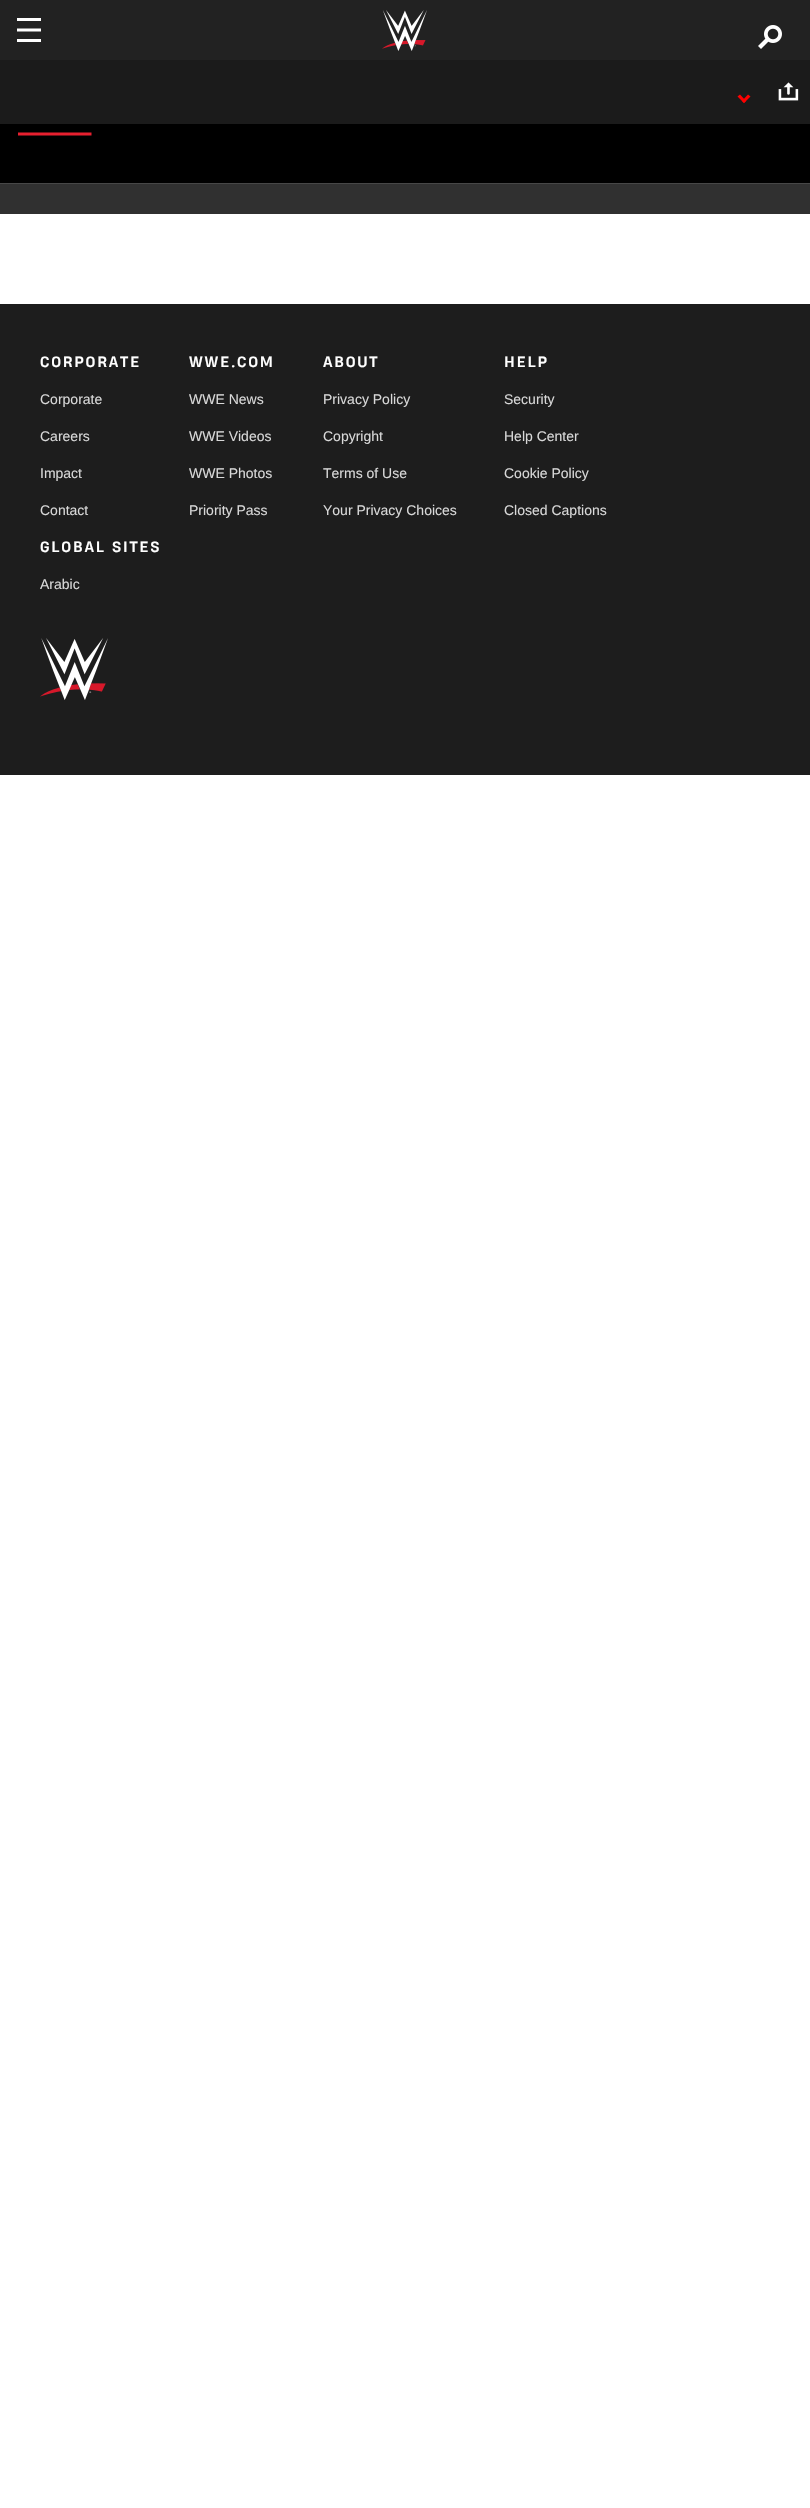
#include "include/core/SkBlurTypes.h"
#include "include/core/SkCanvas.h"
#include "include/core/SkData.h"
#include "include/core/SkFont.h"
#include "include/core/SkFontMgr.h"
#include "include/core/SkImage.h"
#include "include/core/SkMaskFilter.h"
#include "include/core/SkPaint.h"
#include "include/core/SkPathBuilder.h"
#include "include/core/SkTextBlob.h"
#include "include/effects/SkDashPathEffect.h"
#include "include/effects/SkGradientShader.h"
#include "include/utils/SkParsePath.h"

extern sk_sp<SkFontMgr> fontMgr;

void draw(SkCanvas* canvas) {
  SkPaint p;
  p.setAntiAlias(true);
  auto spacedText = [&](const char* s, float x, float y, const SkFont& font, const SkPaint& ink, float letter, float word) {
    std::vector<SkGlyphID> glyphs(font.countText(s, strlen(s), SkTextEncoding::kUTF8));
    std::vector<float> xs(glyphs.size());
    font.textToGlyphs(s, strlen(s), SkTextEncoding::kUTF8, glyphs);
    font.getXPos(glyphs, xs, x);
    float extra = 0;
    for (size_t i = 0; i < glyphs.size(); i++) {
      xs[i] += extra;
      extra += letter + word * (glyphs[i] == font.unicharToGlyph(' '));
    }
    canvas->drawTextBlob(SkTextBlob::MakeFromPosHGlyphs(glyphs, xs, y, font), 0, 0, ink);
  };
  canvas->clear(SK_ColorWHITE);
  p.setColor(SkColorSetRGB(34, 34, 34));
  canvas->drawRect(SkRect::MakeLTRB(0, 0, 810, 60), p);
  canvas->drawImageRect(SkImages::DeferredFromEncodedData(SkData::MakeFromFileName("images/1.png")), SkRect::MakeLTRB(17, 18, 41, 42), SkSamplingOptions());
  canvas->drawImageRect(SkImages::DeferredFromEncodedData(SkData::MakeFromFileName("images/2.png")), SkRect::MakeLTRB(382, 10, 427, 51), SkSamplingOptions());
  canvas->drawImageRect(SkImages::DeferredFromEncodedData(SkData::MakeFromFileName("images/3.png")), SkRect::MakeLTRB(758, 25, 782, 49), SkSamplingOptions());
  p.setColor(SkColorSetRGB(48, 48, 48));
  canvas->drawRect(SkRect::MakeLTRB(0, 184, 810, 214), p);
  p.setColor(SkColorSetRGB(27, 27, 27));
  canvas->drawRect(SkRect::MakeLTRB(0, 60, 810, 124), p);
  p.setColor(SkColorSetRGB(255, 0, 0));
  canvas->drawPath(SkPathBuilder().moveTo(748, 94.5f).lineTo(750.5f, 96.5f).lineTo(744, 103).lineTo(742, 101).close().detach(), p);
  canvas->drawPath(SkPathBuilder().moveTo(740, 94.5f).lineTo(746, 101).lineTo(744, 103).lineTo(737.5f, 96.5f).close().detach(), p);
  canvas->drawImageRect(SkImages::DeferredFromEncodedData(SkData::MakeFromFileName("images/4.png")), SkRect::MakeLTRB(778, 82, 799, 101), SkSamplingOptions());
  p.setColor(SK_ColorBLACK);
  canvas->drawRect(SkRect::MakeLTRB(0, 124, 810, 183), p);
  p.setColor(SkColorSetRGB(71, 71, 71));
  canvas->drawRect(SkRect::MakeLTRB(0, 183, 810, 184), p);
  canvas->save();
  canvas->clipRect(SkRect::MakeLTRB(18, 131, 108, 136));
  p.setStyle(SkPaint::kStroke_Style);
  p.setStrokeWidth(3);
  p.setColor(SkColorSetRGB(231, 32, 47));
  canvas->drawPath(SkPathBuilder().moveTo(1.5f, 134).lineTo(91.5f, 134).detach(), p);
  canvas->restore();
  p.setStyle(SkPaint::kFill_Style);
  p.setColor(SkColorSetRGB(29, 29, 29));
  canvas->drawRect(SkRect::MakeLTRB(0, 304, 810, 775), p);
  canvas->drawImageRect(SkImages::DeferredFromEncodedData(SkData::MakeFromFileName("images/5.png")), SkRect::MakeLTRB(40, 638, 108, 700), SkSamplingOptions());
  SkFont font1(fontMgr->matchFamilyStyle("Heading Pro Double", SkFontStyle::Bold()), 14);
  font1.setSubpixel(true);
  p.setColor(SK_ColorWHITE);
  spacedText("CORPORATE", 40, 367, font1, p, 1.75f, 0);
  SkFont font2(fontMgr->matchFamilyStyle("Liberation Sans", SkFontStyle::Normal()), 14);
  font2.setSubpixel(true);
  p.setColor(SkColorSetRGB(216, 216, 216));
  canvas->drawString("Corporate", 40, 404, font2, p);
  canvas->drawString("Careers", 40, 441, font2, p);
  canvas->drawString("Impact", 40, 478, font2, p);
  canvas->drawString("Contact", 40, 515, font2, p);
  p.setColor(SK_ColorWHITE);
  spacedText("WWE.COM", 189, 367, font1, p, 1.75f, 0);
  p.setColor(SkColorSetRGB(216, 216, 216));
  canvas->drawString("WWE News", 189, 404, font2, p);
  canvas->drawString("WWE Videos", 189, 441, font2, p);
  canvas->drawString("WWE Photos", 189, 478, font2, p);
  canvas->drawString("Priority Pass", 189, 515, font2, p);
  p.setColor(SK_ColorWHITE);
  spacedText("ABOUT", 323, 367, font1, p, 1.75f, 0);
  p.setColor(SkColorSetRGB(216, 216, 216));
  canvas->drawString("Privacy Policy", 323, 404, font2, p);
  canvas->drawString("Copyright", 323, 441, font2, p);
  canvas->drawString("Terms of Use", 323, 478, font2, p);
  canvas->drawString("Your Privacy Choices", 323, 515, font2, p);
  p.setColor(SK_ColorWHITE);
  spacedText("HELP", 504, 367, font1, p, 1.75f, 0);
  p.setColor(SkColorSetRGB(216, 216, 216));
  canvas->drawString("Security", 504, 404, font2, p);
  canvas->drawString("Help Center", 504, 441, font2, p);
  canvas->drawString("Cookie Policy", 504, 478, font2, p);
  canvas->drawString("Closed Captions", 504, 515, font2, p);
  p.setColor(SK_ColorWHITE);
  spacedText("GLOBAL SITES", 40, 552, font1, p, 1.75f, 0);
  p.setColor(SkColorSetRGB(216, 216, 216));
  canvas->drawString("Arabic", 40, 589, font2, p);
}
